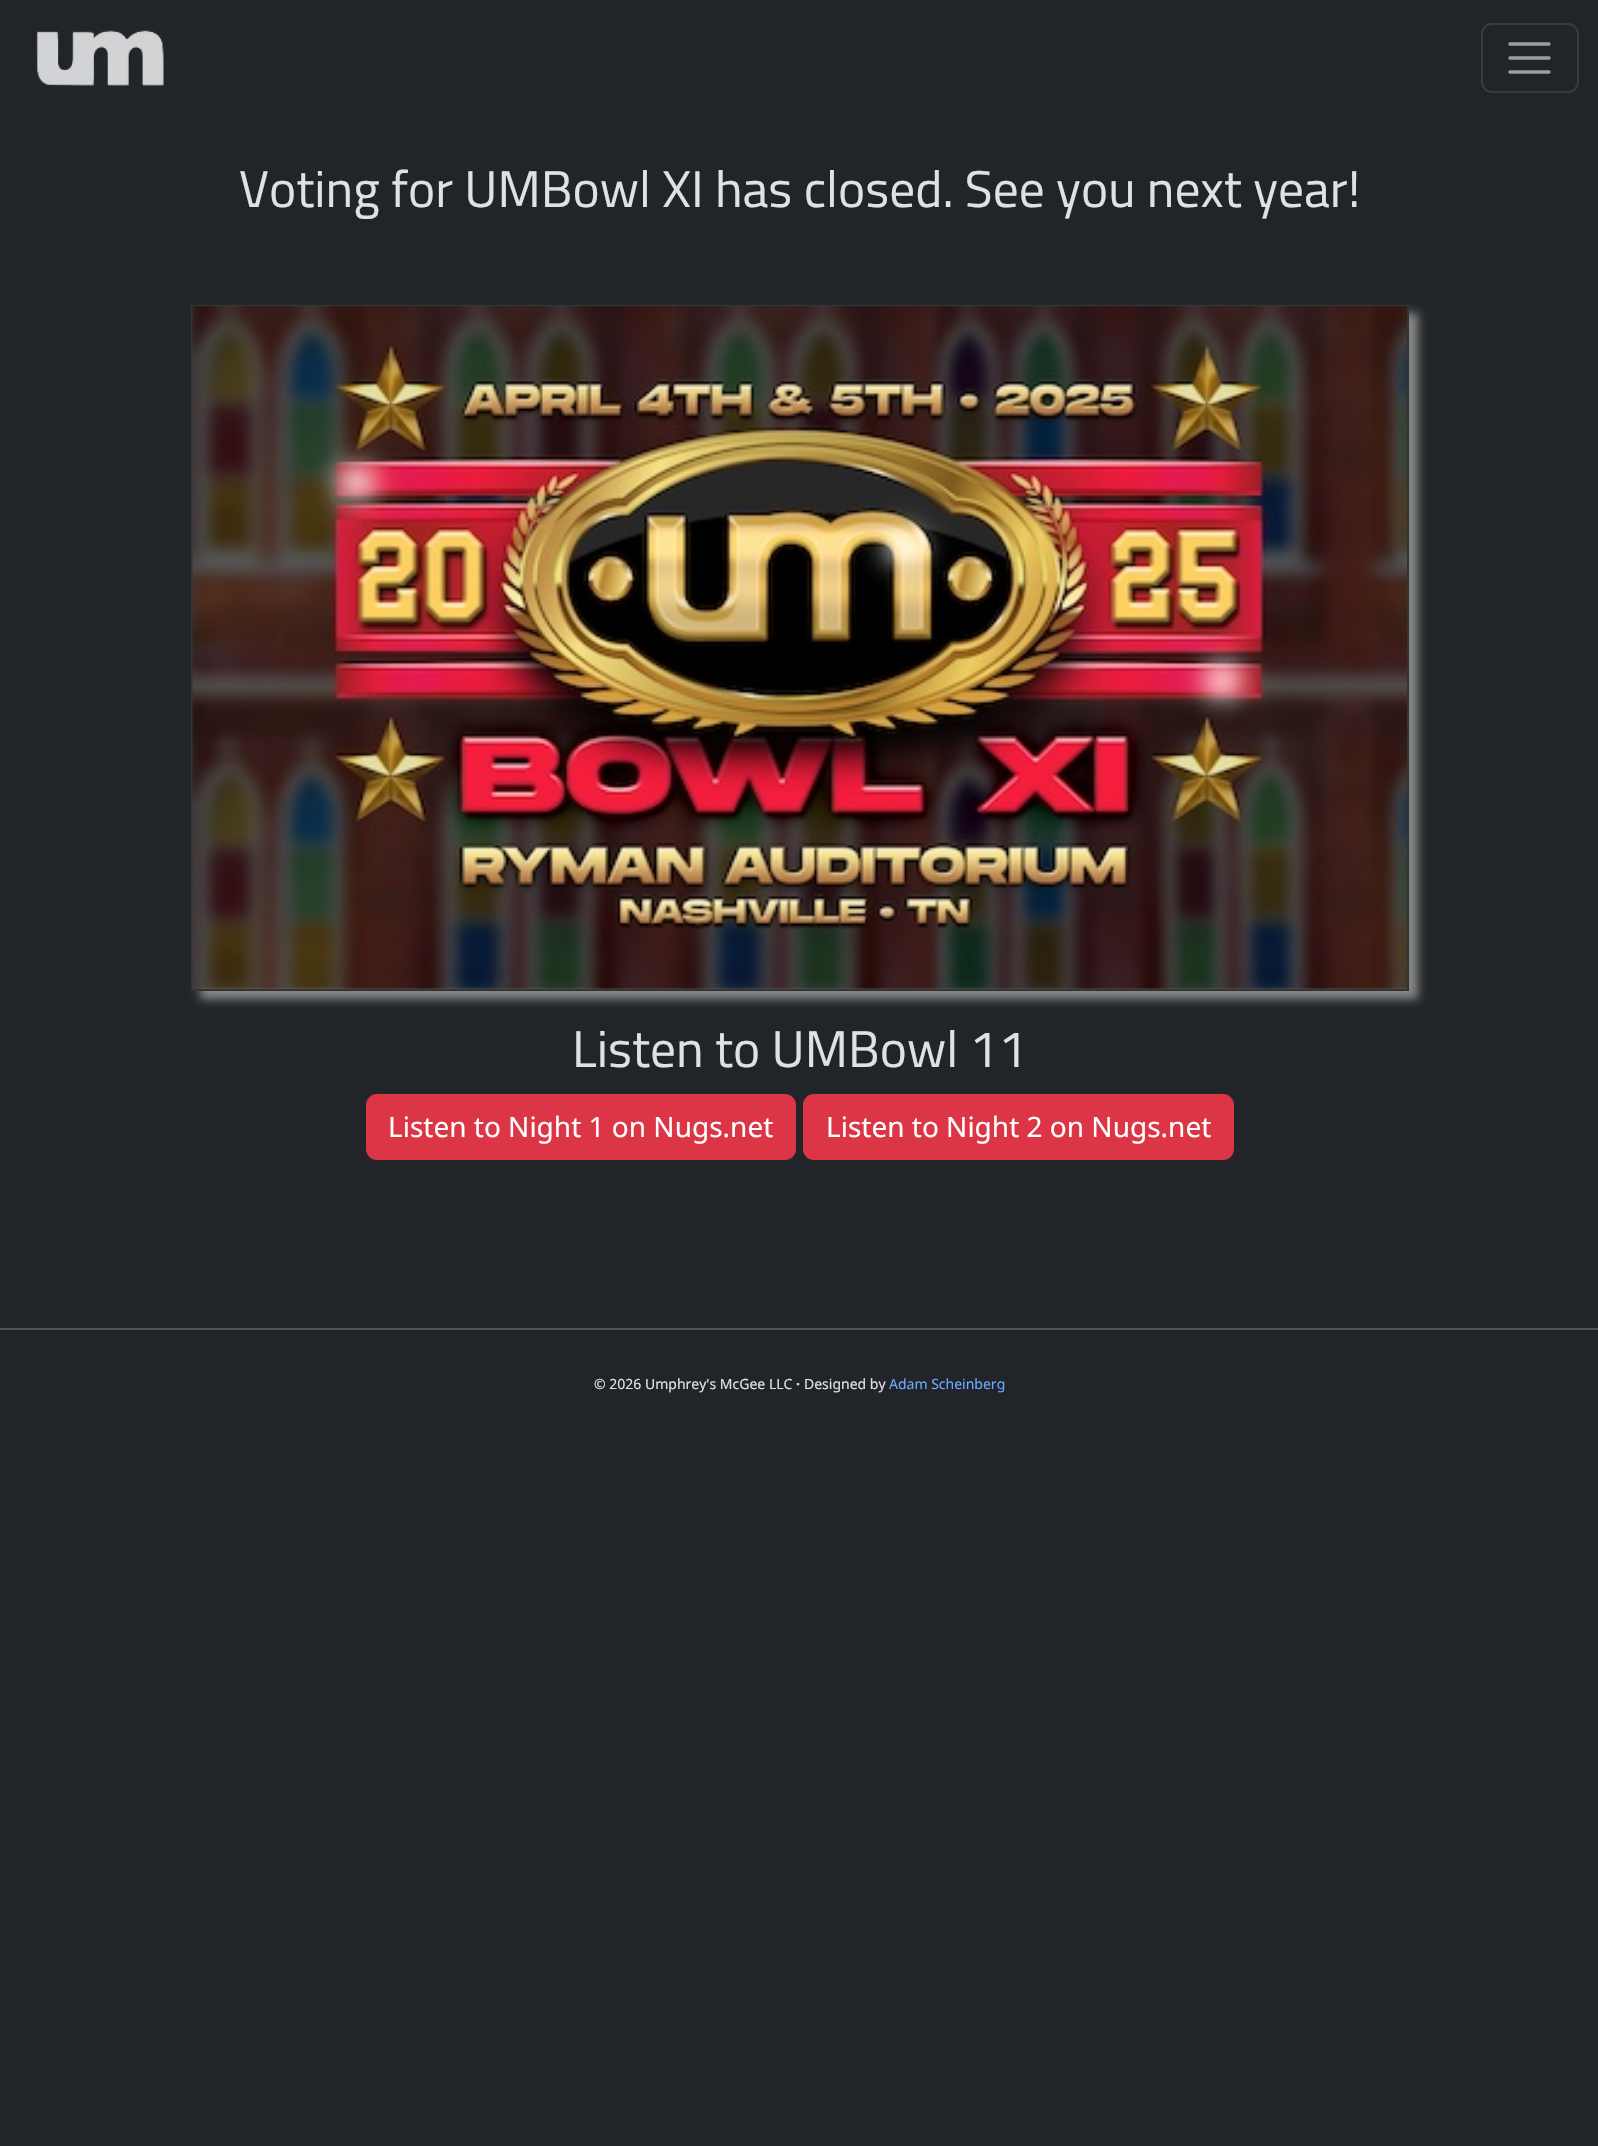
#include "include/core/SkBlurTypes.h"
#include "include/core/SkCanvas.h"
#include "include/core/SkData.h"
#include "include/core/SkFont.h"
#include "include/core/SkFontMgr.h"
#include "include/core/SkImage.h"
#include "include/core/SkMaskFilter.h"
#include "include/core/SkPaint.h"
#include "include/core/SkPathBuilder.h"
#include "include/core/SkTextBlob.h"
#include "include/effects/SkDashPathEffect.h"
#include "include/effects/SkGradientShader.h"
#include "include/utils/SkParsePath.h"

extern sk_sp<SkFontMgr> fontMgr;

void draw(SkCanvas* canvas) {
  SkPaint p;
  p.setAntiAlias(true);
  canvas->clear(SkColorSetRGB(33, 37, 41));
  canvas->drawImageRect(SkImages::DeferredFromEncodedData(SkData::MakeFromFileName("images/1.png")), SkRect::MakeLTRB(36, 30, 164, 86), SkSamplingOptions());
  p.setStyle(SkPaint::kStroke_Style);
  p.setStrokeWidth(2);
  p.setColor(SkColorSetRGB(55, 59, 62));
  canvas->drawRoundRect(SkRect::MakeLTRB(1482, 24, 1578, 92), 10, 10, p);
  p.setStrokeWidth(3.5f);
  p.setStrokeCap(SkPaint::kRound_Cap);
  p.setColor(SkColorSetRGB(155, 157, 159));
  canvas->drawPath(SkPathBuilder().moveTo(1510, 44).lineTo(1549, 44).moveTo(1510, 58).lineTo(1549, 58).moveTo(1510, 72).lineTo(1549, 72).detach(), p);
  p.setStyle(SkPaint::kFill_Style);
  p.setColor(SkColorSetRGB(136, 136, 136));
  p.setMaskFilter(SkMaskFilter::MakeBlur(kNormal_SkBlurStyle, 4.5f));
  canvas->drawRect(SkRect::MakeLTRB(200, 313, 1418, 999), p);
  p.setMaskFilter(nullptr);
  p.setStyle(SkPaint::kStroke_Style);
  p.setStrokeWidth(2);
  p.setStrokeCap(SkPaint::kButt_Cap);
  p.setColor(SkColorSetRGB(51, 51, 51));
  canvas->drawRect(SkRect::MakeLTRB(192, 306, 1408, 990), p);
  canvas->drawImageRect(SkImages::DeferredFromEncodedData(SkData::MakeFromFileName("images/2.png")), SkRect::MakeLTRB(192, 306, 1407, 989), SkSamplingOptions());
  p.setStyle(SkPaint::kFill_Style);
  p.setColor(SkColorSetRGB(220, 53, 69));
  canvas->drawRoundRect(SkRect::MakeLTRB(367, 1095, 795, 1159), 10, 10, p);
  p.setStyle(SkPaint::kStroke_Style);
  canvas->drawRoundRect(SkRect::MakeLTRB(367, 1095, 795, 1159), 10, 10, p);
  p.setStyle(SkPaint::kFill_Style);
  canvas->drawRoundRect(SkRect::MakeLTRB(804, 1095, 1233, 1159), 10, 10, p);
  p.setStyle(SkPaint::kStroke_Style);
  canvas->drawRoundRect(SkRect::MakeLTRB(804, 1095, 1233, 1159), 10, 10, p);
  p.setStyle(SkPaint::kFill_Style);
  p.setColor(SkColorSetRGB(80, 84, 88));
  canvas->drawRect(SkRect::MakeLTRB(0, 1328, 1598, 1330), p);
  SkFont font1(fontMgr->matchFamilyStyle("Titillium Web", SkFontStyle::Normal()), 51.5f);
  font1.setSubpixel(true);
  p.setColor(SkColorSetRGB(222, 226, 230));
  canvas->drawString("Voting for UMBowl XI has closed. See you next year!", 239, 207, font1, p);
  canvas->drawString("Listen to UMBowl 11", 572, 1067, font1, p);
  SkFont font2(fontMgr->matchFamilyStyle("Noto Sans", SkFontStyle::Normal()), 28);
  font2.setSubpixel(true);
  p.setColor(SK_ColorWHITE);
  canvas->drawString("Listen to Night 1 on Nugs.net", 388, 1137, font2, p);
  canvas->drawString("Listen to Night 2 on Nugs.net", 826, 1137, font2, p);
  SkFont font3(fontMgr->matchFamilyStyle("Noto Sans", SkFontStyle::Normal()), 14);
  font3.setSubpixel(true);
  p.setColor(SkColorSetRGB(222, 226, 230));
  canvas->drawString("© 2026 Umphrey's McGee LLC", 594, 1389, font3, p);
  SkFont font4(fontMgr->matchFamilyStyle("Noto Sans", SkFontStyle::Bold()), 14);
  font4.setSubpixel(true);
  canvas->drawString("·", 796, 1389, font4, p);
  canvas->drawString("Designed by", 804, 1389, font3, p);
  p.setColor(SkColorSetRGB(110, 168, 254));
  canvas->drawString("Adam Scheinberg", 889, 1389, font3, p);
}
